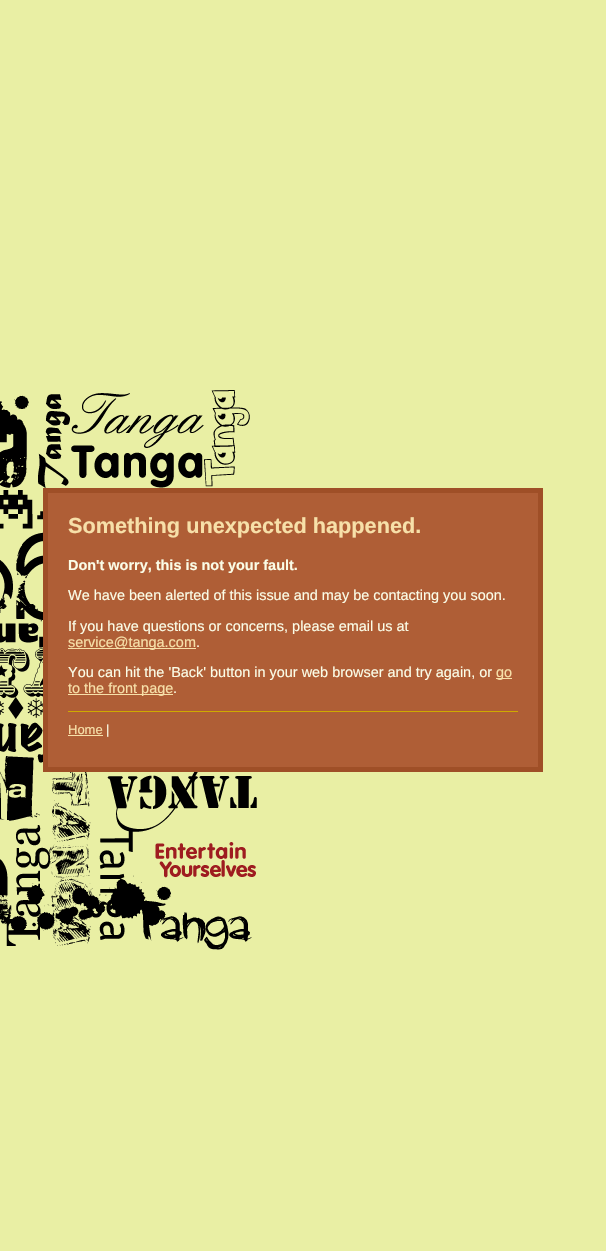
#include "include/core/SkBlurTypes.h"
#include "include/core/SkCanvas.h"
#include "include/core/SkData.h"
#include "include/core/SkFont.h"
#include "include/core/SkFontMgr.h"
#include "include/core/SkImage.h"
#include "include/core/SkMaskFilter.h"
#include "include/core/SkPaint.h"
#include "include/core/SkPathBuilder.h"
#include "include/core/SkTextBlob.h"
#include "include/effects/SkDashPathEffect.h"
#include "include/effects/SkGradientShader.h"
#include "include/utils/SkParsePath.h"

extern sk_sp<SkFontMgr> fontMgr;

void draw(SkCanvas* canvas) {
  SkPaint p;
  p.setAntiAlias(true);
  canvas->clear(SkColorSetRGB(233, 239, 164));
  canvas->drawImageRect(SkImages::DeferredFromEncodedData(SkData::MakeFromFileName("images/1.png")), SkRect::MakeLTRB(0, 390, 257, 950), SkSamplingOptions());
  p.setColor(SkColorSetRGB(175, 94, 54));
  canvas->drawRect(SkRect::MakeLTRB(45.5f, 490.5f, 540.5f, 769.5f), p);
  p.setStyle(SkPaint::kStroke_Style);
  p.setStrokeWidth(5);
  p.setColor(SkColorSetRGB(159, 79, 39));
  canvas->drawRect(SkRect::MakeLTRB(45.5f, 490.5f, 540.5f, 769.5f), p);
  p.setStyle(SkPaint::kFill_Style);
  p.setColor(SkColorSetRGB(247, 224, 169));
  canvas->drawRect(SkRect::MakeLTRB(68, 648, 196, 649), p);
  canvas->drawRect(SkRect::MakeLTRB(496, 678, 512, 679), p);
  canvas->drawRect(SkRect::MakeLTRB(68, 694, 173, 695), p);
  p.setColor(SkColorSetRGB(207, 170, 0));
  canvas->drawRect(SkRect::MakeLTRB(68, 711, 518, 712), p);
  p.setColor(SkColorSetRGB(247, 224, 169));
  canvas->drawRect(SkRect::MakeLTRB(68, 735, 103, 736), p);
  SkFont font1(fontMgr->matchFamilyStyle("Liberation Sans", SkFontStyle::Bold()), 21.7f);
  font1.setSubpixel(true);
  canvas->drawString("Something unexpected happened.", 68, 533, font1, p);
  SkFont font2(fontMgr->matchFamilyStyle("Liberation Sans", SkFontStyle::Bold()), 14.45f);
  font2.setSubpixel(true);
  p.setColor(SkColorSetRGB(251, 253, 231));
  canvas->drawString("Don't worry, this is not your fault.", 68, 570, font2, p);
  SkFont font3(fontMgr->matchFamilyStyle("Liberation Sans", SkFontStyle::Normal()), 14.45f);
  font3.setSubpixel(true);
  canvas->drawString("We have been alerted of this issue and may be contacting you soon.", 68, 600, font3, p);
  canvas->drawString("If you have questions or concerns, please email us at", 68, 631, font3, p);
  p.setColor(SkColorSetRGB(247, 224, 169));
  canvas->drawString("service@tanga.com", 68, 647, font3, p);
  p.setColor(SkColorSetRGB(251, 253, 231));
  canvas->drawString(".", 196, 647, font3, p);
  canvas->drawString("You can hit the 'Back' button in your web browser and try again, or", 68, 677, font3, p);
  p.setColor(SkColorSetRGB(247, 224, 169));
  canvas->drawString("go", 496, 677, font3, p);
  canvas->drawString("to the front page", 68, 693, font3, p);
  p.setColor(SkColorSetRGB(251, 253, 231));
  canvas->drawString(".", 173, 693, font3, p);
  SkFont font4(fontMgr->matchFamilyStyle("Liberation Sans", SkFontStyle::Normal()), 13);
  font4.setSubpixel(true);
  p.setColor(SkColorSetRGB(247, 224, 169));
  canvas->drawString("Home", 68, 734, font4, p);
  p.setColor(SkColorSetRGB(251, 253, 231));
  canvas->drawString("|", 106, 734, font4, p);
}
